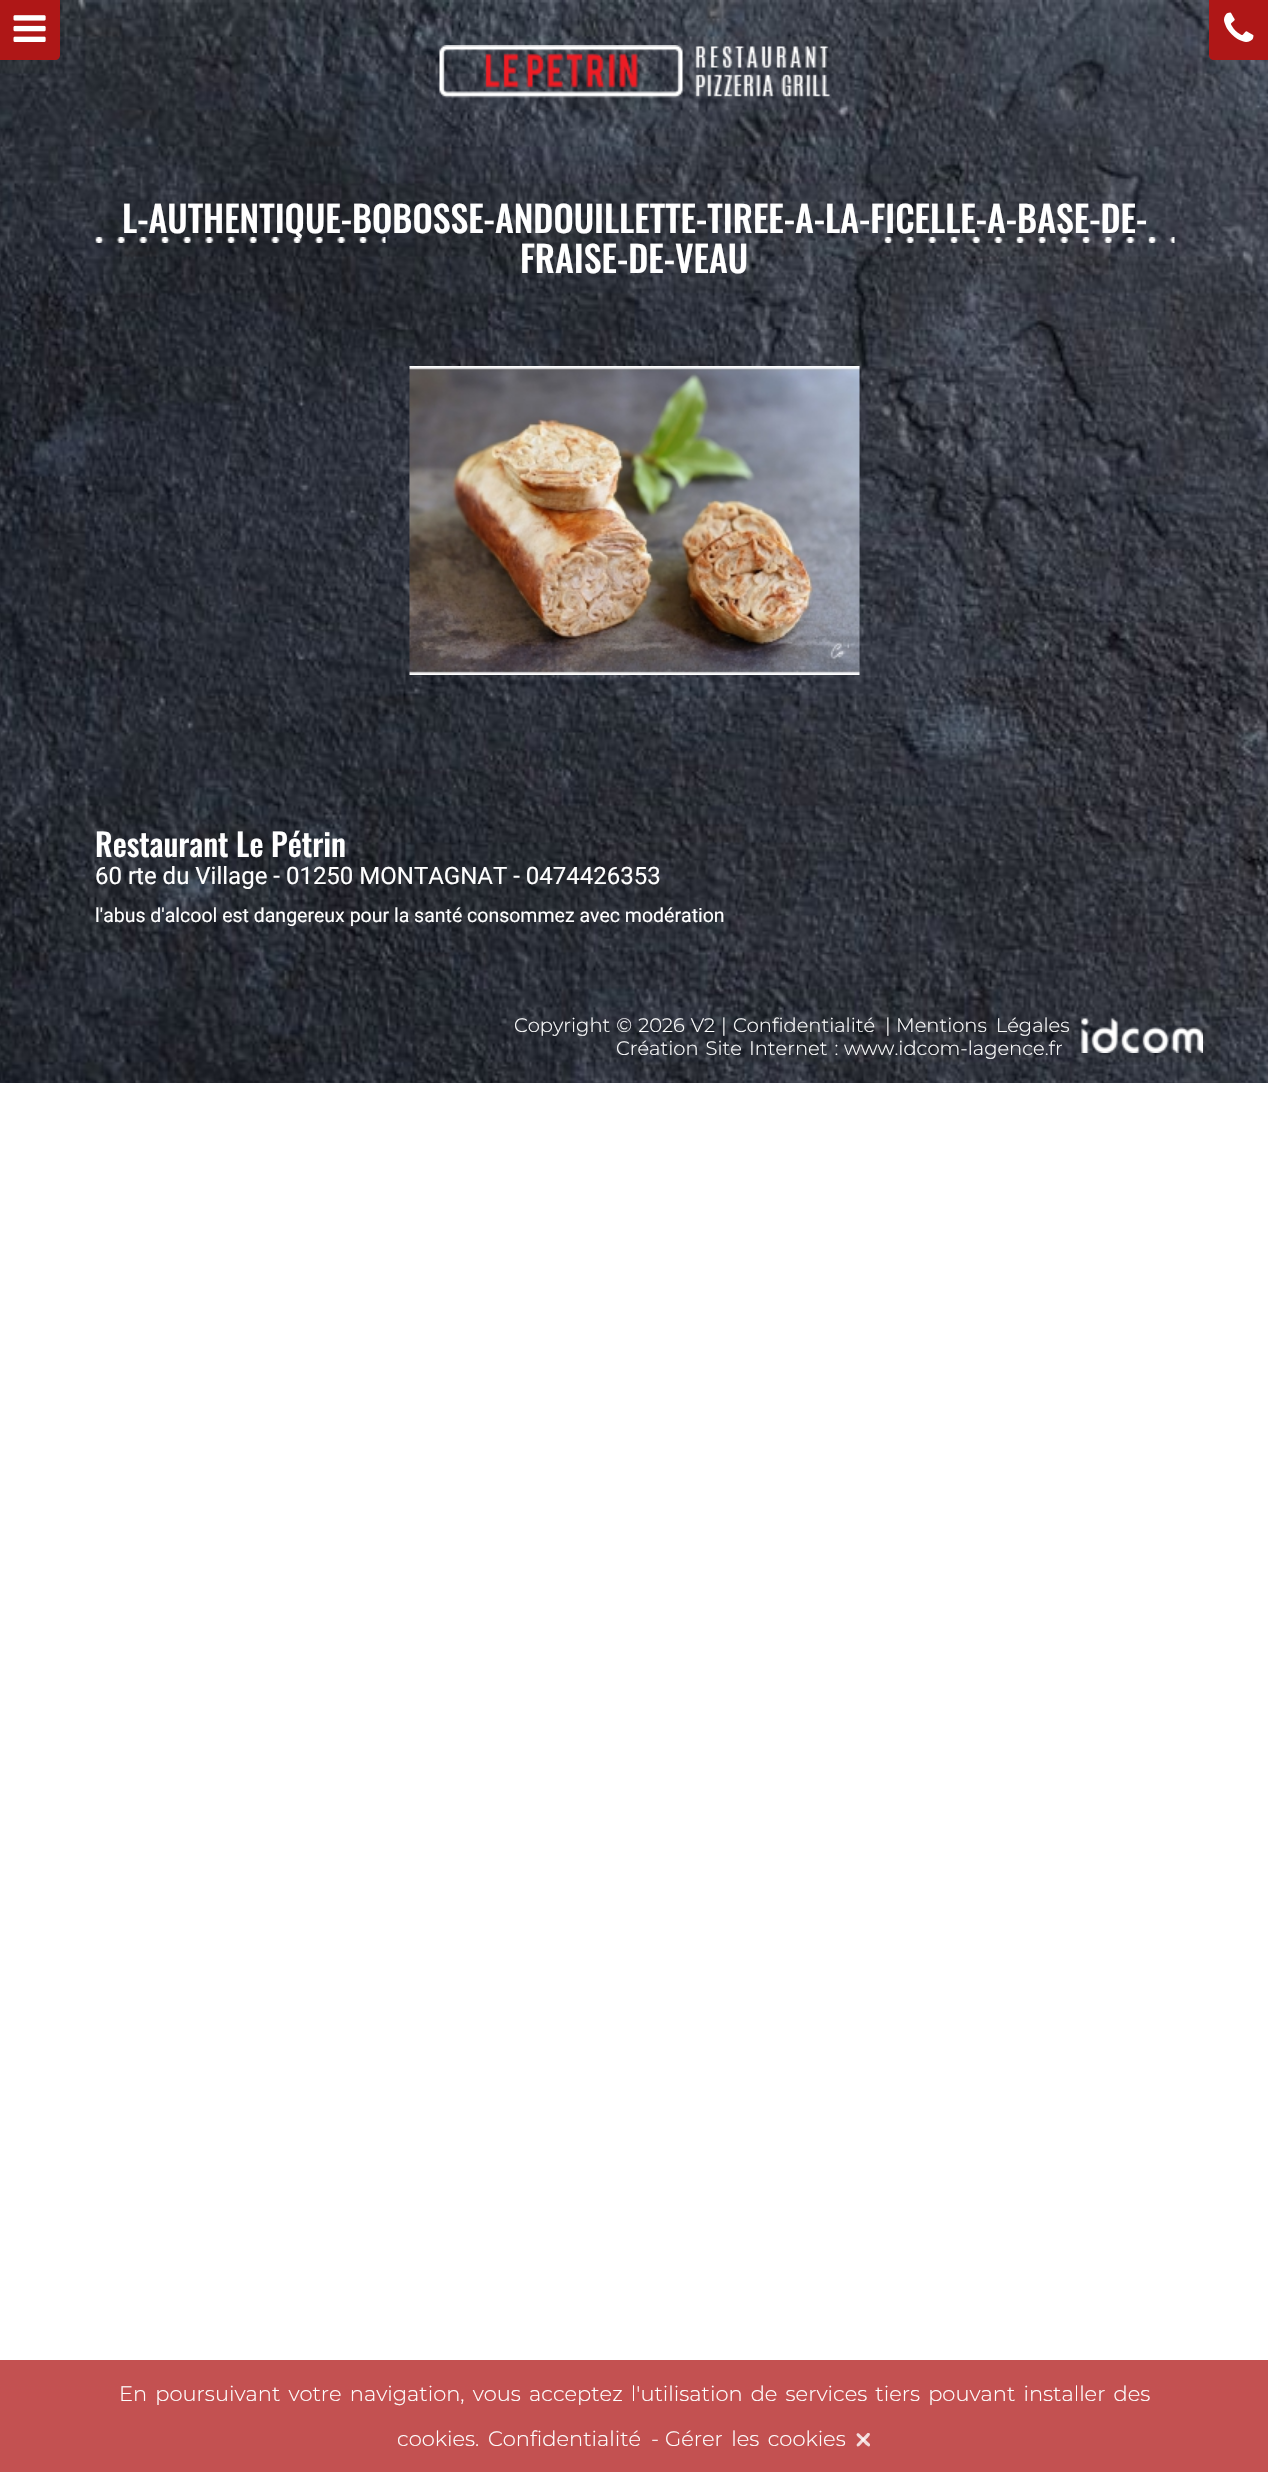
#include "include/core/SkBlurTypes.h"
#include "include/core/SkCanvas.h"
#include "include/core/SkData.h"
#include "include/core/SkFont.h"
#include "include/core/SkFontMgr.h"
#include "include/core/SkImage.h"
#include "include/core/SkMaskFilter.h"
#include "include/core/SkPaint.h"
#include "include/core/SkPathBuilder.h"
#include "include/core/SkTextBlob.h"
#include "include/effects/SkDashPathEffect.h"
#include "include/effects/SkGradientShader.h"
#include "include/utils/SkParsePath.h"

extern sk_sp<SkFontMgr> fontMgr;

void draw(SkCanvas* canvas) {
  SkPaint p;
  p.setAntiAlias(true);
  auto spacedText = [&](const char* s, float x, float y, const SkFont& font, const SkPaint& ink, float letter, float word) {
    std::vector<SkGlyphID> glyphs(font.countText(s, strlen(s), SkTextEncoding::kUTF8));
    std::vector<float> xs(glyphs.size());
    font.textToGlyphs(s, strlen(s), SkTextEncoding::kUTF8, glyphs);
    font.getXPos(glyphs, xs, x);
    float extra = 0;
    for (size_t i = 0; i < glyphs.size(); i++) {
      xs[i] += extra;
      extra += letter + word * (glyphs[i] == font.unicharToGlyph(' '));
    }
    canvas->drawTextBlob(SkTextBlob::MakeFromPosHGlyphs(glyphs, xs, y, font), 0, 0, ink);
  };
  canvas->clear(SK_ColorWHITE);
  canvas->drawImageRect(SkImages::DeferredFromEncodedData(SkData::MakeFromFileName("images/3.png")), SkRect::MakeLTRB(0, 0, 1268, 1083), SkSamplingOptions());
  p.setColor(SkColorSetRGB(175, 23, 23));
  canvas->drawPath(SkPathBuilder().moveTo(0, 0).lineTo(60, 0).lineTo(60, 55).cubicTo(60, 58, 58, 60, 55, 60).lineTo(0, 60).close().detach(), p);
  canvas->drawImageRect(SkImages::DeferredFromEncodedData(SkData::MakeFromFileName("images/1.png")), SkRect::MakeLTRB(13, 15, 46, 42), SkSamplingOptions());
  canvas->drawPath(SkPathBuilder().moveTo(1209, 0).lineTo(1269, 0).lineTo(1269, 60).lineTo(1214, 60).cubicTo(1211, 60, 1209, 58, 1209, 55).close().detach(), p);
  canvas->drawImageRect(SkImages::DeferredFromEncodedData(SkData::MakeFromFileName("images/2.png")), SkRect::MakeLTRB(1224, 12, 1254, 42), SkSamplingOptions());
  canvas->drawImageRect(SkImages::DeferredFromEncodedData(SkData::MakeFromFileName("images/4.png")), SkRect::MakeLTRB(439, 45, 830, 98), SkSamplingOptions());
  canvas->drawImageRect(SkImages::DeferredFromEncodedData(SkData::MakeFromFileName("images/7.png")), SkRect::MakeLTRB(409, 366, 860, 675), SkSamplingOptions());
  canvas->drawImageRect(SkImages::DeferredFromEncodedData(SkData::MakeFromFileName("images/8.png")), SkRect::MakeLTRB(1081, 1018, 1203, 1053), SkSamplingOptions());
  p.setColor(SkColorSetRGB(195, 81, 81));
  canvas->drawRect(SkRect::MakeLTRB(0, 2360, 1268, 2472), p);
  p.setColor(SkColorSetRGB(243, 220, 220));
  canvas->drawPath(SkPathBuilder().moveTo(859, 2433.5f).lineTo(870, 2444).lineTo(870, 2445.5f).cubicTo(869, 2448, 866.5f, 2445, 865.5f, 2444.5f).lineTo(860.5f, 2439).cubicTo(859.5f, 2438, 855, 2435, 857, 2433.5f).cubicTo(857.5f, 2433, 858.5f, 2433, 859, 2433.5f).close().detach(), p);
  p.setColor(SkColorSetARGB(204, 255, 255, 255));
  canvas->drawPath(SkPathBuilder().moveTo(857, 2444).lineTo(867.5f, 2433).lineTo(869, 2433).cubicTo(871.5f, 2434, 868.5f, 2436.5f, 868, 2437.5f).lineTo(862.5f, 2442.5f).cubicTo(861.5f, 2443.5f, 858.5f, 2448, 857, 2446).cubicTo(856.5f, 2445.5f, 856.5f, 2444.5f, 857, 2444).close().detach(), p);
  SkFont font1(fontMgr->matchFamilyStyle("Oswald", SkFontStyle(500, SkFontStyle::kNormal_Width, SkFontStyle::kUpright_Slant)), 36);
  font1.setSubpixel(true);
  p.setColor(SK_ColorWHITE);
  canvas->drawString("L-AUTHENTIQUE-BOBOSSE-ANDOUILLETTE-TIREE-A-LA-FICELLE-A-BASE-DE-", 122, 233, font1, p);
  canvas->drawImageRect(SkImages::DeferredFromEncodedData(SkData::MakeFromFileName("images/5.png")), SkRect::MakeLTRB(95, 237, 386, 243), SkSamplingOptions());
  canvas->drawImageRect(SkImages::DeferredFromEncodedData(SkData::MakeFromFileName("images/6.png")), SkRect::MakeLTRB(884, 237, 1175, 243), SkSamplingOptions());
  canvas->drawString("FRAISE-DE-VEAU", 520, 273, font1, p);
  SkFont font2(fontMgr->matchFamilyStyle("Oswald", SkFontStyle(500, SkFontStyle::kNormal_Width, SkFontStyle::kUpright_Slant)), 31.5f);
  font2.setSubpixel(true);
  canvas->drawString("Restaurant Le Pétrin", 95, 857, font2, p);
  SkFont font3(fontMgr->matchFamilyStyle("Roboto", SkFontStyle::Normal()), 24);
  font3.setSubpixel(true);
  canvas->drawString("60 rte du Village - 01250 MONTAGNAT - 0474426353", 95, 884, font3, p);
  SkFont font4(fontMgr->matchFamilyStyle("Roboto", SkFontStyle::Normal()), 19.5f);
  font4.setSubpixel(true);
  canvas->drawString("l'abus d'alcool est dangereux pour la santé consommez avec modération", 95, 922, font4, p);
  SkFont font5(fontMgr->matchFamilyStyle("Montserrat", SkFontStyle(300, SkFontStyle::kNormal_Width, SkFontStyle::kUpright_Slant)), 19.5f);
  font5.setSubpixel(true);
  spacedText("Copyright © 2026 V2 |", 514, 1032, font5, p, 0, 1);
  canvas->drawString("Confidentialité", 733, 1032, font5, p);
  canvas->drawString("|", 885, 1032, font5, p);
  spacedText("Mentions Légales", 896, 1032, font5, p, 0, 4);
  spacedText("Création Site Internet :", 616, 1055, font5, p, 0, 2);
  canvas->drawString("www.idcom-lagence.fr", 844, 1055, font5, p);
  SkFont font6(fontMgr->matchFamilyStyle("Montserrat", SkFontStyle(300, SkFontStyle::kNormal_Width, SkFontStyle::kUpright_Slant)), 21);
  font6.setSubpixel(true);
  spacedText("En poursuivant votre navigation, vous acceptez l'utilisation de services tiers pouvant installer des", 119, 2401, font6, p, 0, 2.75f);
  canvas->drawString("cookies.", 397, 2446, font6, p);
  canvas->drawString("Confidentialité", 488, 2446, font6, p);
  canvas->drawString("-", 651, 2446, font6, p);
  spacedText("Gérer les cookies", 665, 2446, font6, p, 0, 3);
}
